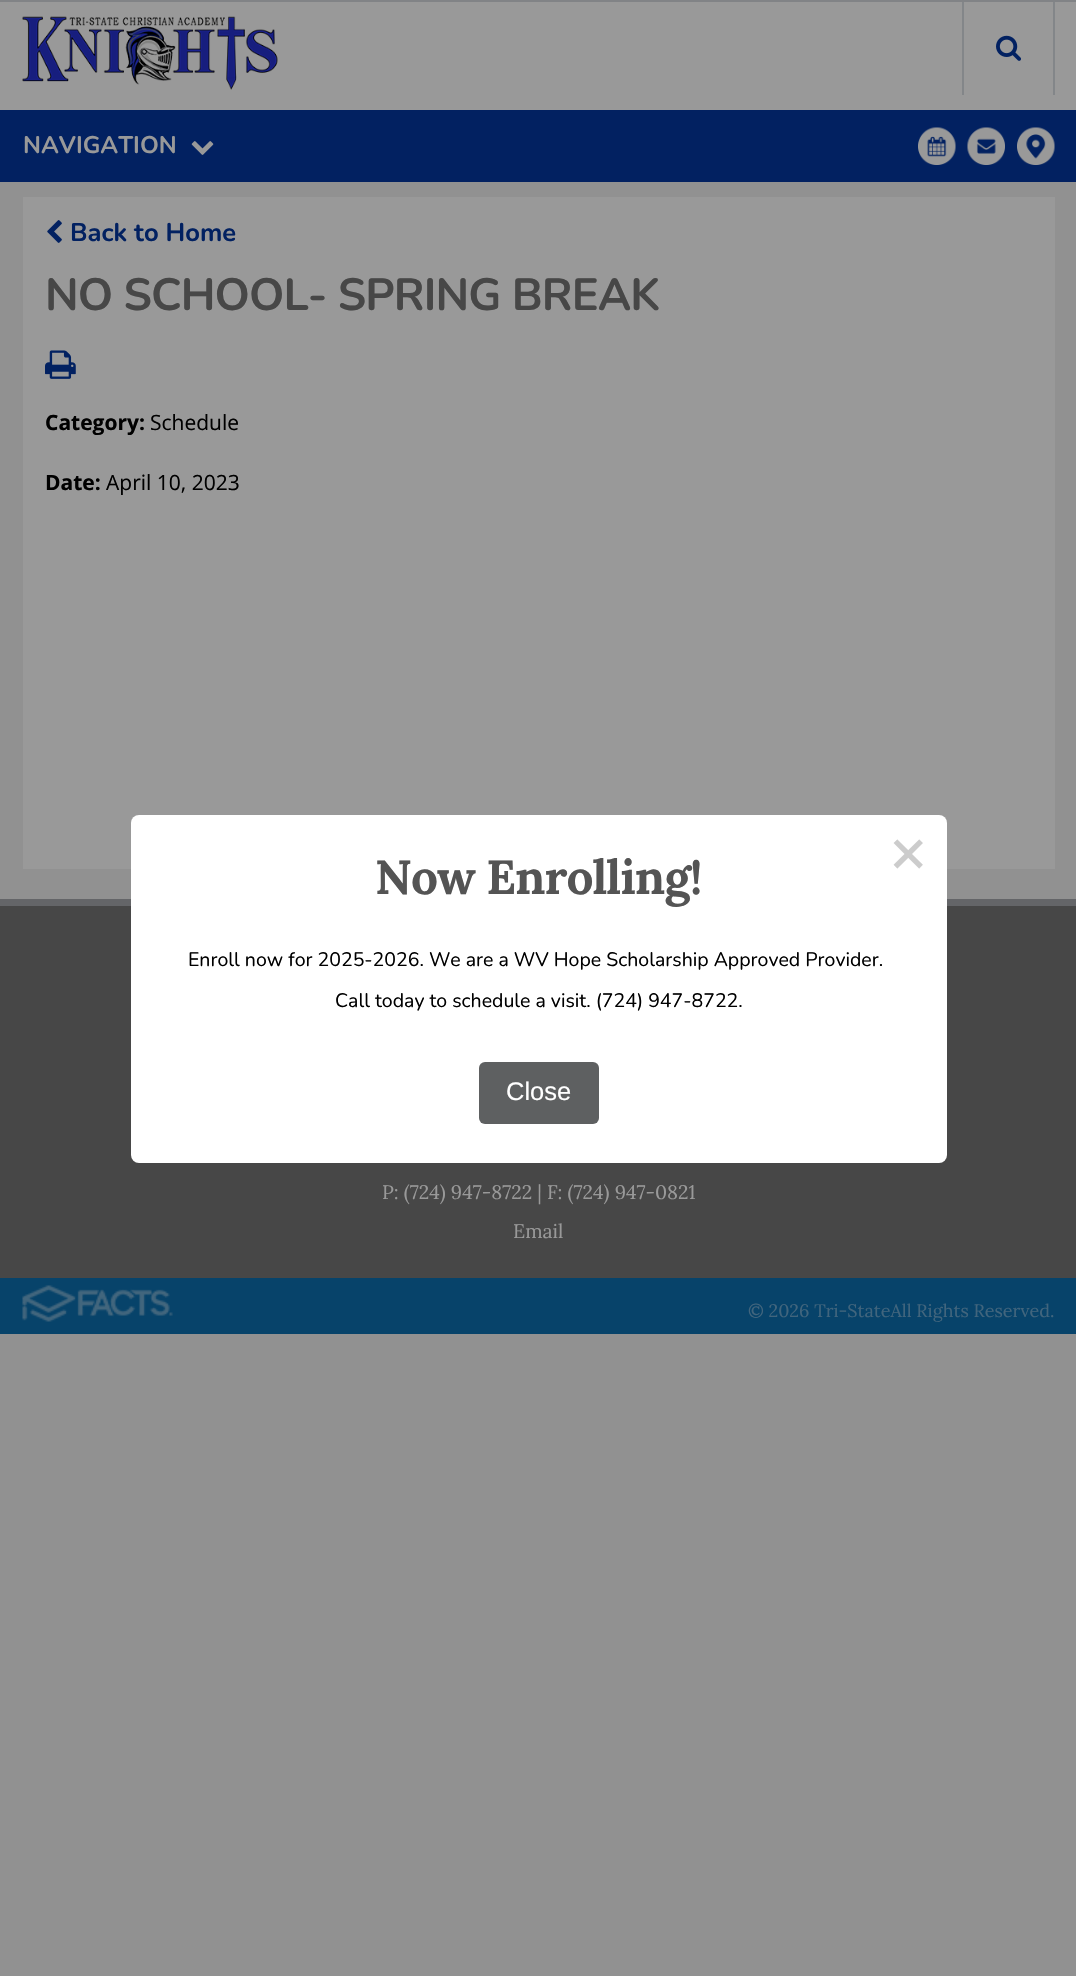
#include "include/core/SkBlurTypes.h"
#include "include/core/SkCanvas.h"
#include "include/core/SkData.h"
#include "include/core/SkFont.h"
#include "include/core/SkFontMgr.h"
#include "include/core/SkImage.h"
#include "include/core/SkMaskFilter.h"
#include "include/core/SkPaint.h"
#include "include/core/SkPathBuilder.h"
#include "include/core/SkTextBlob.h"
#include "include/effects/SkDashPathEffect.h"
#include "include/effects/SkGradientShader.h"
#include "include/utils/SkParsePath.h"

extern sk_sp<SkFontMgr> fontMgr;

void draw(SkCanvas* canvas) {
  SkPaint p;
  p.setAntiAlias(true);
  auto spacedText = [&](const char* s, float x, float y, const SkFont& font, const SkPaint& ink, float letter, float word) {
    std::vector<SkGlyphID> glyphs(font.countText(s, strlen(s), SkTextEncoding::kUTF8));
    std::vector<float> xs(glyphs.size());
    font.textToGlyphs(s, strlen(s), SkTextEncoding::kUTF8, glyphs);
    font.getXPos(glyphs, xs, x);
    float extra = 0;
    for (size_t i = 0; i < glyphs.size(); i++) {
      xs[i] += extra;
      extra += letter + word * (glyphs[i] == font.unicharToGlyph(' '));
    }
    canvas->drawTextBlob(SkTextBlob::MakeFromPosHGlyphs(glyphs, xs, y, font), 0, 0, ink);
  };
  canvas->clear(SkColorSetRGB(145, 145, 145));
  p.setColor(SkColorSetRGB(153, 153, 153));
  canvas->drawRect(SkRect::MakeLTRB(0, 2, 1076, 110), p);
  p.setColor(SkColorSetRGB(129, 131, 134));
  canvas->drawRect(SkRect::MakeLTRB(0, 0, 1076, 2), p);
  canvas->drawImageRect(SkImages::DeferredFromEncodedData(SkData::MakeFromFileName("images/1.png")), SkRect::MakeLTRB(22, 16, 278, 90), SkSamplingOptions());
  p.setColor(SkColorSetRGB(131, 134, 137));
  canvas->drawRect(SkRect::MakeLTRB(1053, 2, 1055, 95), p);
  canvas->drawRect(SkRect::MakeLTRB(962, 2, 964, 95), p);
  canvas->drawImageRect(SkImages::DeferredFromEncodedData(SkData::MakeFromFileName("images/2.png")), SkRect::MakeLTRB(996, 35, 1021, 61), SkSamplingOptions());
  p.setColor(SkColorSetRGB(2, 33, 97));
  canvas->drawRect(SkRect::MakeLTRB(0, 110, 1076, 182), p);
  canvas->drawImageRect(SkImages::DeferredFromEncodedData(SkData::MakeFromFileName("images/3.png")), SkRect::MakeLTRB(191, 141, 214, 155), SkSamplingOptions());
  canvas->drawImageRect(SkImages::DeferredFromEncodedData(SkData::MakeFromFileName("images/4.png")), SkRect::MakeLTRB(918, 127, 956, 165), SkSamplingOptions());
  canvas->drawImageRect(SkImages::DeferredFromEncodedData(SkData::MakeFromFileName("images/5.png")), SkRect::MakeLTRB(967, 127, 1005, 165), SkSamplingOptions());
  canvas->drawImageRect(SkImages::DeferredFromEncodedData(SkData::MakeFromFileName("images/6.png")), SkRect::MakeLTRB(1017, 127, 1055, 165), SkSamplingOptions());
  p.setColor(SkColorSetRGB(153, 153, 153));
  canvas->drawRect(SkRect::MakeLTRB(23, 197, 1055, 869), p);
  canvas->drawImageRect(SkImages::DeferredFromEncodedData(SkData::MakeFromFileName("images/7.png")), SkRect::MakeLTRB(47, 220, 62, 243), SkSamplingOptions());
  canvas->drawImageRect(SkImages::DeferredFromEncodedData(SkData::MakeFromFileName("images/8.png")), SkRect::MakeLTRB(45, 350, 76, 379), SkSamplingOptions());
  p.setColor(SkColorSetRGB(71, 71, 71));
  canvas->drawRect(SkRect::MakeLTRB(0, 906, 1076, 1278), p);
  p.setColor(SkColorSetRGB(100, 101, 104));
  canvas->drawRect(SkRect::MakeLTRB(0, 899, 1076, 906), p);
  p.setColor(SkColorSetRGB(7, 67, 106));
  canvas->drawRect(SkRect::MakeLTRB(0, 1278, 1076, 1334), p);
  canvas->drawImageRect(SkImages::DeferredFromEncodedData(SkData::MakeFromFileName("images/9.png")), SkRect::MakeLTRB(22, 1285, 173, 1322), SkSamplingOptions());
  p.setColor(SK_ColorWHITE);
  canvas->drawRoundRect(SkRect::MakeLTRB(131, 815, 947, 1163), 8, 8, p);
  p.setColor(SkColorSetRGB(94, 96, 97));
  canvas->drawRoundRect(SkRect::MakeLTRB(479, 1062, 599, 1124), 6, 6, p);
  SkFont font1(fontMgr->matchFamilyStyle("Nunito", SkFontStyle::Bold()), 24);
  font1.setSubpixel(true);
  p.setColor(SkColorSetRGB(153, 153, 153));
  canvas->drawString("NAVIGATION", 23, 153, font1, p);
  SkFont font2(fontMgr->matchFamilyStyle("Nunito", SkFontStyle::Bold()), 25.5f);
  font2.setSubpixel(true);
  p.setColor(SkColorSetRGB(2, 33, 97));
  canvas->drawString("Back to Home", 70, 241, font2, p);
  SkFont font3(fontMgr->matchFamilyStyle("Nunito", SkFontStyle::Bold()), 45);
  font3.setSubpixel(true);
  p.setColor(SkColorSetRGB(71, 71, 71));
  spacedText("NO SCHOOL- SPRING BREAK", 45, 310, font3, p, -0.9f, 0);
  SkFont font4(fontMgr->matchFamilyStyle("Open Sans", SkFontStyle::Bold()), 21);
  font4.setSubpixel(true);
  p.setColor(SK_ColorBLACK);
  canvas->drawString("Category:", 45, 430, font4, p);
  SkFont font5(fontMgr->matchFamilyStyle("Open Sans", SkFontStyle::Normal()), 21);
  font5.setSubpixel(true);
  canvas->drawString("Schedule", 150, 430, font5, p);
  canvas->drawString("Date:", 45, 490, font4, p);
  canvas->drawString("April 10, 2023", 106, 490, font5, p);
  SkFont font6(fontMgr->matchFamilyStyle("Lora", SkFontStyle::Normal()), 19.5f);
  font6.setSubpixel(true);
  p.setColor(SkColorSetRGB(153, 153, 153));
  canvas->drawString("P: (724) 947-8722 | F: (724) 947-0821", 382, 1199, font6, p);
  canvas->drawString("Email", 513, 1238, font6, p);
  SkFont font7(fontMgr->matchFamilyStyle("Lora", SkFontStyle::Normal()), 18);
  font7.setSubpixel(true);
  p.setColor(SkColorSetRGB(65, 101, 125));
  canvas->drawString("© 2026 Tri-StateAll Rights Reserved.", 748, 1317, font7, p);
  SkFont font8(fontMgr->matchFamilyStyle("DejaVu Sans Mono", SkFontStyle::Normal()), 64);
  font8.setSubpixel(true);
  p.setColor(SkColorSetRGB(204, 204, 204));
  canvas->drawString("×", 889, 874, font8, p);
  SkFont font9(fontMgr->matchFamilyStyle("Lora", SkFontStyle::Bold()), 47.75f);
  font9.setSubpixel(true);
  p.setColor(SkColorSetRGB(84, 84, 84));
  spacedText("Now Enrolling!", 375, 894, font9, p, -1, 0);
  SkFont font10(fontMgr->matchFamilyStyle("Nunito", SkFontStyle::Normal()), 19.5f);
  font10.setSubpixel(true);
  p.setColor(SK_ColorBLACK);
  canvas->drawString("Enroll now for 2025-2026. We are a WV Hope Scholarship Approved Provider.", 188, 966, font10, p);
  canvas->drawString("Call today to schedule a visit. (724) 947-8722.", 335, 1007, font10, p);
  SkFont font11(fontMgr->matchFamilyStyle("Liberation Sans", SkFontStyle::Normal()), 25.5f);
  font11.setSubpixel(true);
  p.setColor(SK_ColorWHITE);
  canvas->drawString("Close", 506, 1100, font11, p);
}
